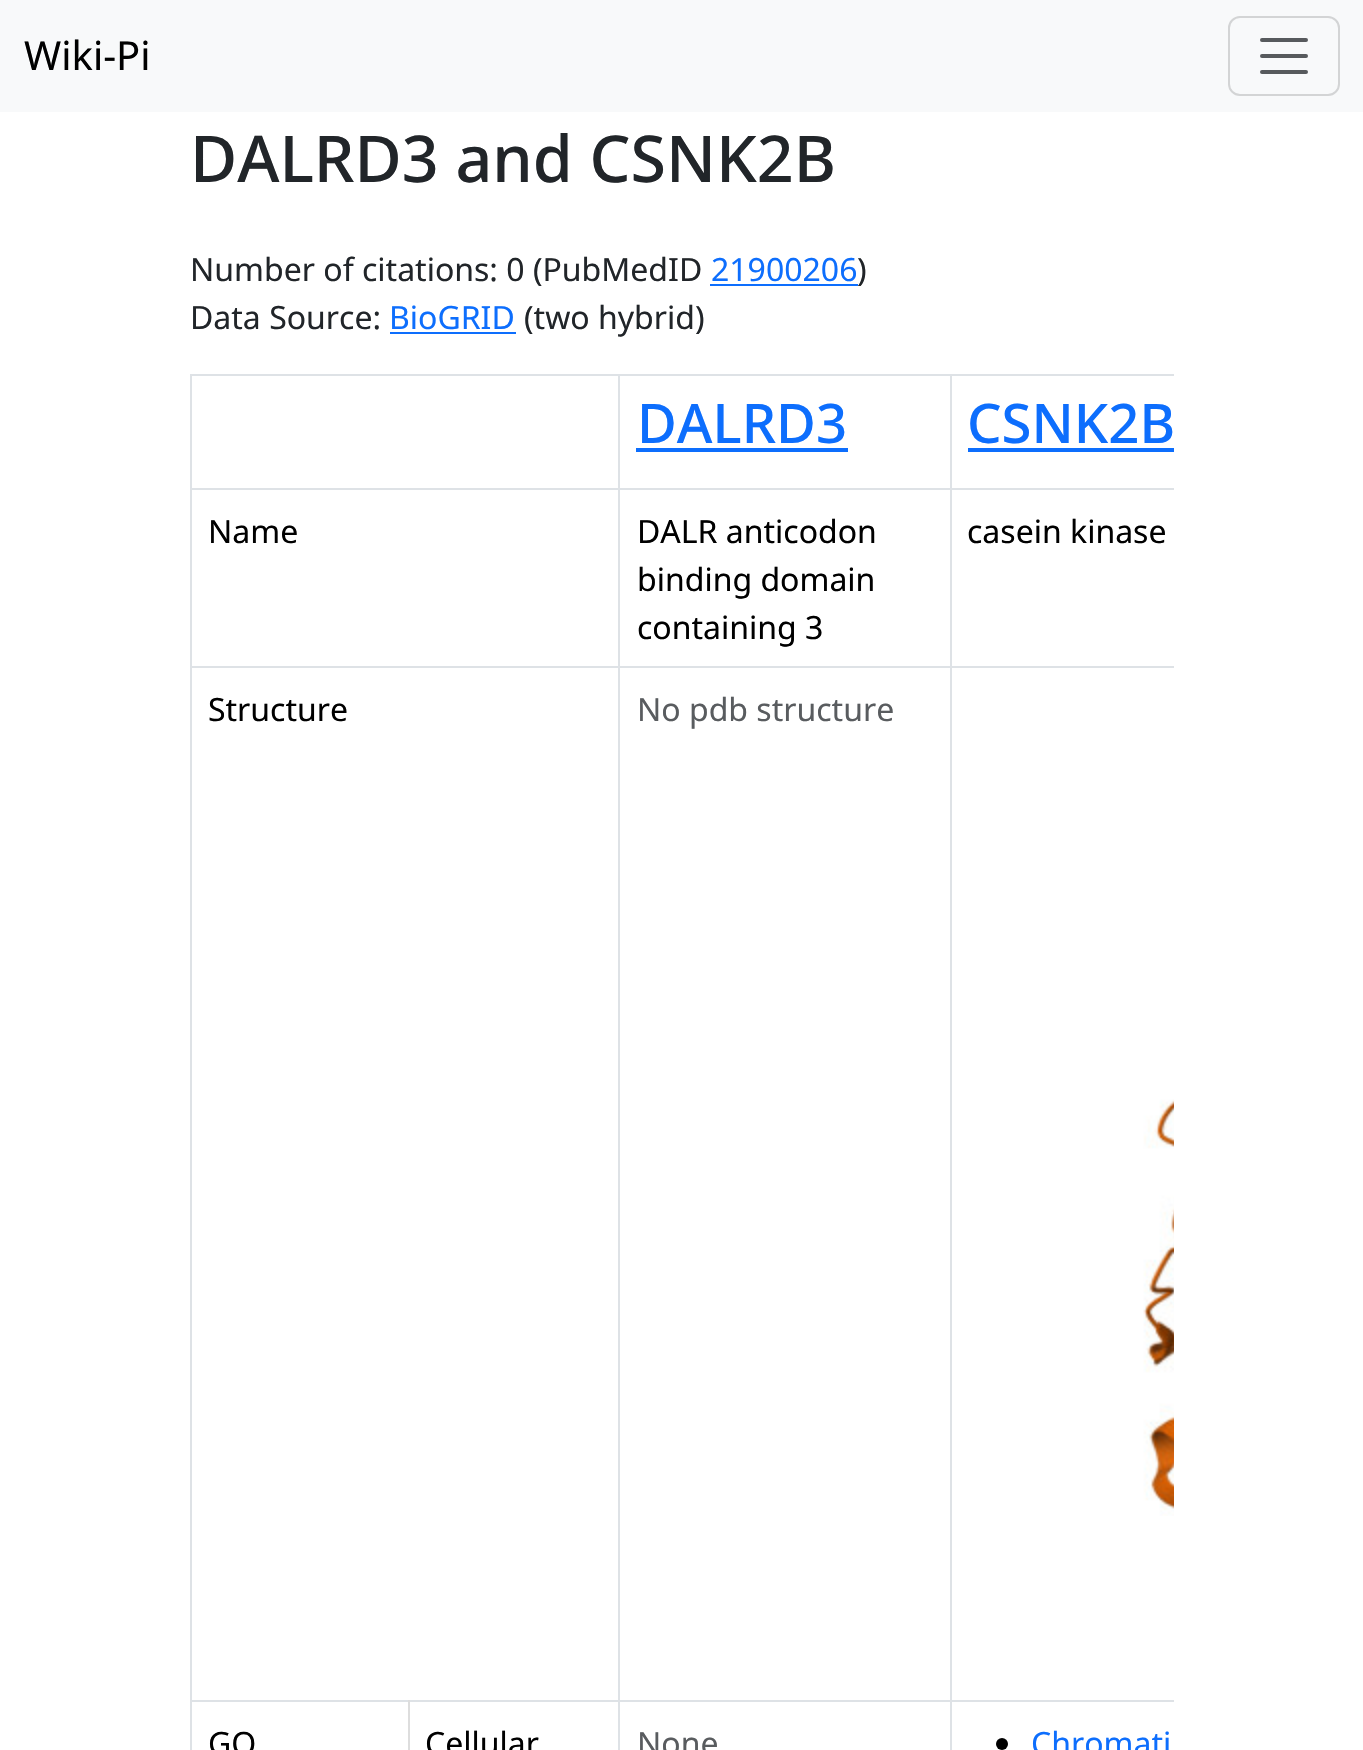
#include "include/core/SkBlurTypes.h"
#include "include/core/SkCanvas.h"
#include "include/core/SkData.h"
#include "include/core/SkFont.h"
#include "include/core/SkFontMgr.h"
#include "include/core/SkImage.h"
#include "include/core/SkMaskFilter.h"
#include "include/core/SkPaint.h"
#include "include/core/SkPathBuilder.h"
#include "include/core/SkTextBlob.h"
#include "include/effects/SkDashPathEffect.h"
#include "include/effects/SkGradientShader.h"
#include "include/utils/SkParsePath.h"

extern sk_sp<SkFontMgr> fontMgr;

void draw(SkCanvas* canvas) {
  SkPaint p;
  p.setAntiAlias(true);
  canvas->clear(SK_ColorWHITE);
  p.setColor(SkColorSetRGB(248, 249, 250));
  canvas->drawRect(SkRect::MakeLTRB(0, 0, 1363, 112), p);
  p.setStyle(SkPaint::kStroke_Style);
  p.setStrokeWidth(2);
  p.setColor(SkColorSetRGB(211, 212, 213));
  canvas->drawRoundRect(SkRect::MakeLTRB(1229, 17, 1339, 95), 11, 11, p);
  p.setStrokeWidth(4);
  p.setStrokeCap(SkPaint::kRound_Cap);
  p.setColor(SkColorSetRGB(87, 90, 93));
  canvas->drawPath(SkPathBuilder().moveTo(1262, 40).lineTo(1306, 40).moveTo(1262, 56).lineTo(1306, 56).moveTo(1262, 72).lineTo(1306, 72).detach(), p);
  p.setStyle(SkPaint::kFill_Style);
  p.setColor(SkColorSetRGB(13, 110, 253));
  canvas->drawRect(SkRect::MakeLTRB(710, 284, 858, 286), p);
  canvas->drawRect(SkRect::MakeLTRB(390, 332, 516, 334), p);
  p.setColor(SkColorSetRGB(222, 226, 230));
  canvas->drawRect(SkRect::MakeLTRB(190, 374, 1174, 376), p);
  p.setColor(SkColorSetRGB(13, 110, 253));
  canvas->drawRect(SkRect::MakeLTRB(636, 448, 848, 452), p);
  canvas->drawRect(SkRect::MakeLTRB(968, 448, 1174, 452), p);
  p.setColor(SkColorSetRGB(222, 226, 230));
  canvas->drawRect(SkRect::MakeLTRB(190, 488, 1174, 490), p);
  canvas->drawRect(SkRect::MakeLTRB(190, 666, 1174, 668), p);
  canvas->drawImageRect(SkImages::DeferredFromEncodedData(SkData::MakeFromFileName("images/1.png")), SkRect::MakeLTRB(1143, 1099, 1174, 1516), SkSamplingOptions());
  canvas->drawRect(SkRect::MakeLTRB(190, 1700, 1174, 1702), p);
  p.setColor(SkColorSetRGB(221, 221, 221));
  canvas->drawRect(SkRect::MakeLTRB(408, 1700, 410, 1750), p);
  p.setColor(SkColorSetRGB(222, 226, 230));
  canvas->drawRect(SkRect::MakeLTRB(190, 374, 192, 1750), p);
  canvas->drawRect(SkRect::MakeLTRB(618, 374, 620, 1750), p);
  canvas->drawRect(SkRect::MakeLTRB(950, 374, 952, 1750), p);
  p.setColor(SK_ColorBLACK);
  canvas->drawCircle(1002, 1744, 6, p);
  SkFont font1(fontMgr->matchFamilyStyle("Noto Sans", SkFontStyle::Normal()), 40);
  font1.setSubpixel(true);
  canvas->drawString("Wiki-Pi", 24, 70, font1, p);
  SkFont font2(fontMgr->matchFamilyStyle("Noto Sans", SkFontStyle(500, SkFontStyle::kNormal_Width, SkFontStyle::kUpright_Slant)), 64.5f);
  font2.setSubpixel(true);
  p.setColor(SkColorSetRGB(33, 37, 41));
  canvas->drawString("DALRD3 and CSNK2B", 190, 182, font2, p);
  SkFont font3(fontMgr->matchFamilyStyle("Noto Sans", SkFontStyle::Normal()), 32);
  font3.setSubpixel(true);
  canvas->drawString("Number of citations: 0 (PubMedID", 190, 281, font3, p);
  p.setColor(SkColorSetRGB(13, 110, 253));
  canvas->drawString("21900206", 711, 281, font3, p);
  p.setColor(SkColorSetRGB(33, 37, 41));
  canvas->drawString(")", 857, 281, font3, p);
  canvas->drawString("Data Source:", 190, 329, font3, p);
  p.setColor(SkColorSetRGB(13, 110, 253));
  canvas->drawString("BioGRID", 389, 329, font3, p);
  p.setColor(SkColorSetRGB(33, 37, 41));
  canvas->drawString("(two hybrid)", 524, 329, font3, p);
  SkFont font4(fontMgr->matchFamilyStyle("Noto Sans", SkFontStyle(500, SkFontStyle::kNormal_Width, SkFontStyle::kUpright_Slant)), 54.5f);
  font4.setSubpixel(true);
  p.setColor(SkColorSetRGB(13, 110, 253));
  canvas->drawString("DALRD3", 637, 443, font4, p);
  canvas->drawString("CSNK2B", 967, 443, font4, p);
  p.setColor(SK_ColorBLACK);
  canvas->drawString("Name", 208, 543, font3, p);
  canvas->drawString("DALR anticodon", 637, 543, font3, p);
  canvas->drawString("binding domain", 637, 591, font3, p);
  canvas->drawString("containing 3", 637, 639, font3, p);
  canvas->drawString("casein kinase", 967, 543, font3, p);
  canvas->drawString("Structure", 208, 721, font3, p);
  p.setColor(SkColorSetRGB(89, 92, 95));
  canvas->drawString("No pdb structure", 637, 721, font3, p);
  p.setColor(SK_ColorBLACK);
  canvas->drawString("GO", 208, 1755, font3, p);
  canvas->drawString("Cellular", 425, 1755, font3, p);
  p.setColor(SkColorSetRGB(89, 92, 95));
  canvas->drawString("None", 637, 1755, font3, p);
  p.setColor(SkColorSetRGB(13, 110, 253));
  canvas->drawString("Chromati", 1031, 1755, font3, p);
}
